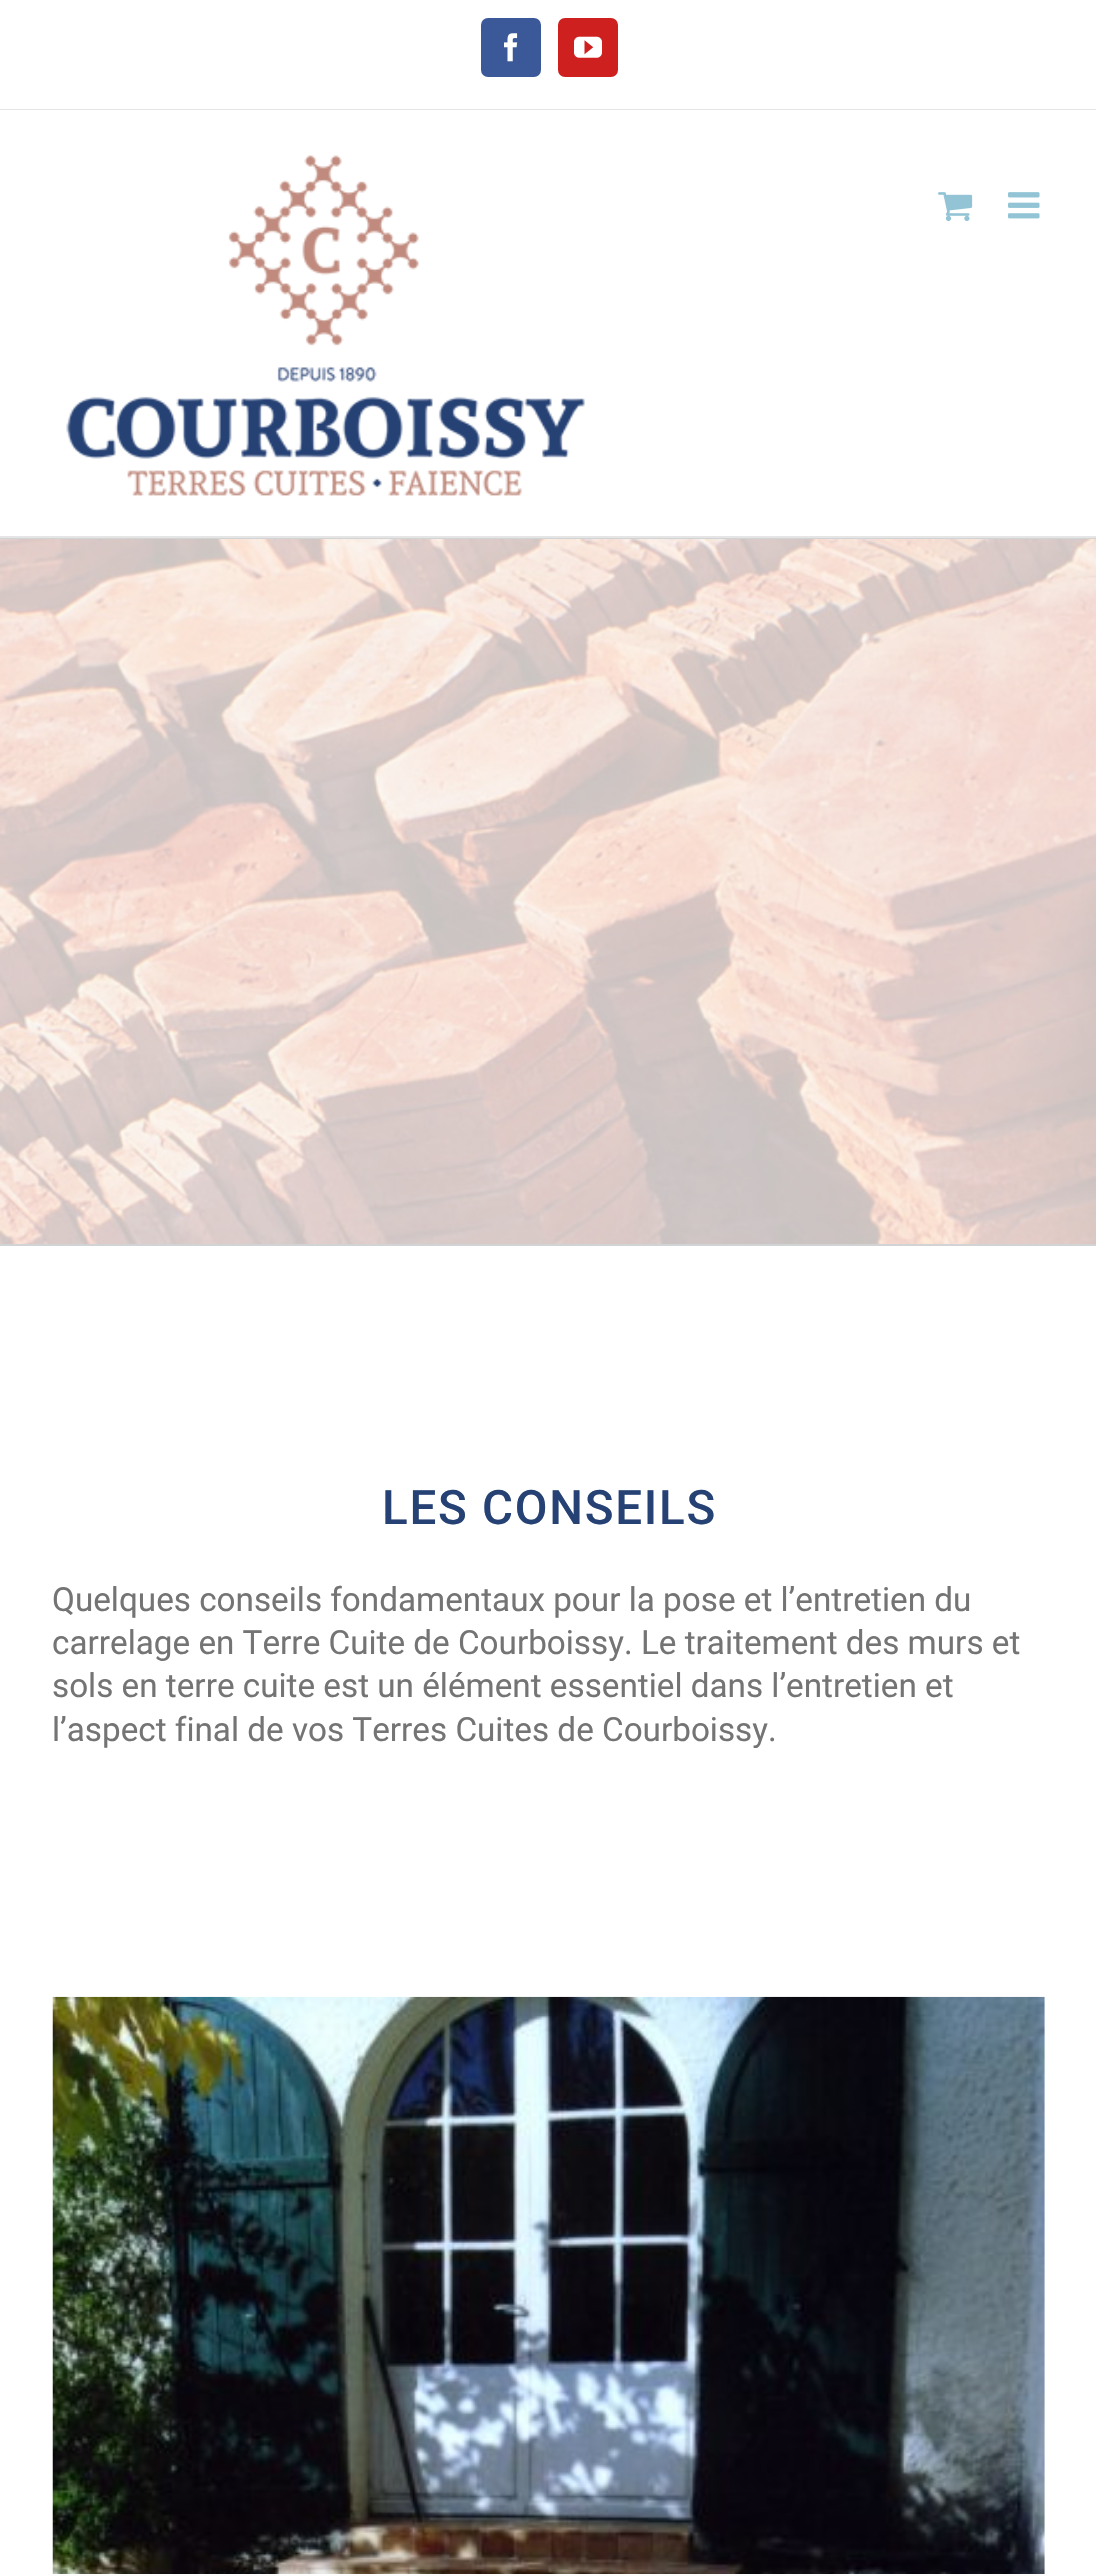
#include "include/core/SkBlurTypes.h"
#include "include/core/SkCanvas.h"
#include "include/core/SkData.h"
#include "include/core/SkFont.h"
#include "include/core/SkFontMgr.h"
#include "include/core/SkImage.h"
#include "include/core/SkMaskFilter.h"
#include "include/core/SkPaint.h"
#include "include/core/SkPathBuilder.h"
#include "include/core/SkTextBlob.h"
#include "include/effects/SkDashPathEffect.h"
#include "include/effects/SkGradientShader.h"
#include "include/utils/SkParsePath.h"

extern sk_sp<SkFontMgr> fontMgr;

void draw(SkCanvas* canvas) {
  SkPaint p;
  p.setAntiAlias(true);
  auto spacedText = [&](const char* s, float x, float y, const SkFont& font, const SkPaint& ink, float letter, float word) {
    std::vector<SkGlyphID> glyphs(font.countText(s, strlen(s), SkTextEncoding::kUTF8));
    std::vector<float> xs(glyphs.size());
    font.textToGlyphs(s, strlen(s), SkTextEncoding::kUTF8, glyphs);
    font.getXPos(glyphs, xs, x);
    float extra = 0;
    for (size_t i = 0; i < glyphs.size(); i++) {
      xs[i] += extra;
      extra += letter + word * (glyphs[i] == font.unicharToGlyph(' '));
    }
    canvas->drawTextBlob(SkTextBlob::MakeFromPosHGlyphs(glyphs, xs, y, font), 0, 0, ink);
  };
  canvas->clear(SK_ColorWHITE);
  p.setColor(SkColorSetRGB(229, 229, 229));
  canvas->drawRect(SkRect::MakeLTRB(0, 109, 1096, 110), p);
  p.setColor(SkColorSetRGB(59, 89, 152));
  canvas->drawRoundRect(SkRect::MakeLTRB(482, 19, 540, 76), 6, 6, p);
  p.setStyle(SkPaint::kStroke_Style);
  p.setStrokeWidth(2);
  canvas->drawRoundRect(SkRect::MakeLTRB(482, 19, 540, 76), 6, 6, p);
  canvas->drawImageRect(SkImages::DeferredFromEncodedData(SkData::MakeFromFileName("images/1.png")), SkRect::MakeLTRB(504, 33, 518, 62), SkSamplingOptions());
  p.setStyle(SkPaint::kFill_Style);
  p.setColor(SkColorSetRGB(205, 32, 31));
  canvas->drawRoundRect(SkRect::MakeLTRB(559, 19, 617, 76), 6, 6, p);
  p.setStyle(SkPaint::kStroke_Style);
  canvas->drawRoundRect(SkRect::MakeLTRB(559, 19, 617, 76), 6, 6, p);
  canvas->drawImageRect(SkImages::DeferredFromEncodedData(SkData::MakeFromFileName("images/2.png")), SkRect::MakeLTRB(574, 36, 602, 58), SkSamplingOptions());
  p.setStyle(SkPaint::kFill_Style);
  p.setColor(SkColorSetRGB(229, 229, 229));
  canvas->drawRect(SkRect::MakeLTRB(0, 536, 1096, 538), p);
  canvas->drawImageRect(SkImages::DeferredFromEncodedData(SkData::MakeFromFileName("images/3.png")), SkRect::MakeLTRB(66, 155, 585, 496), SkSamplingOptions());
  canvas->drawImageRect(SkImages::DeferredFromEncodedData(SkData::MakeFromFileName("images/4.png")), SkRect::MakeLTRB(938, 192, 973, 221), SkSamplingOptions());
  canvas->drawImageRect(SkImages::DeferredFromEncodedData(SkData::MakeFromFileName("images/5.png")), SkRect::MakeLTRB(1008, 192, 1040, 219), SkSamplingOptions());
  p.setColor(SkColorSetRGB(210, 211, 212));
  canvas->drawRect(SkRect::MakeLTRB(0, 538, 1096, 539), p);
  canvas->drawRect(SkRect::MakeLTRB(0, 1244, 1096, 1246), p);
  canvas->drawImageRect(SkImages::DeferredFromEncodedData(SkData::MakeFromFileName("images/6.png")), SkRect::MakeLTRB(0, 539, 1096, 1244), SkSamplingOptions());
  canvas->drawImageRect(SkImages::DeferredFromEncodedData(SkData::MakeFromFileName("images/7.png")), SkRect::MakeLTRB(52, 1996, 1045, 2574), SkSamplingOptions());
  SkFont font1(fontMgr->matchFamilyStyle("Roboto", SkFontStyle(500, SkFontStyle::kNormal_Width, SkFontStyle::kUpright_Slant)), 47.5f);
  font1.setSubpixel(true);
  p.setColor(SkColorSetRGB(38, 66, 116));
  spacedText("LES CONSEILS", 382, 1524, font1, p, 1.75f, 0);
  SkFont font2(fontMgr->matchFamilyStyle("Roboto", SkFontStyle::Normal()), 33.25f);
  font2.setSubpixel(true);
  p.setColor(SkColorSetRGB(116, 116, 116));
  canvas->drawString("Quelques conseils fondamentaux pour la pose et l’entretien du", 52, 1611, font2, p);
  canvas->drawString("carrelage en Terre Cuite de Courboissy. Le traitement des murs et", 52, 1654, font2, p);
  canvas->drawString("sols en terre cuite est un élément essentiel dans l’entretien et", 52, 1697, font2, p);
  canvas->drawString("l’aspect final de vos Terres Cuites de Courboissy.", 52, 1741, font2, p);
}
